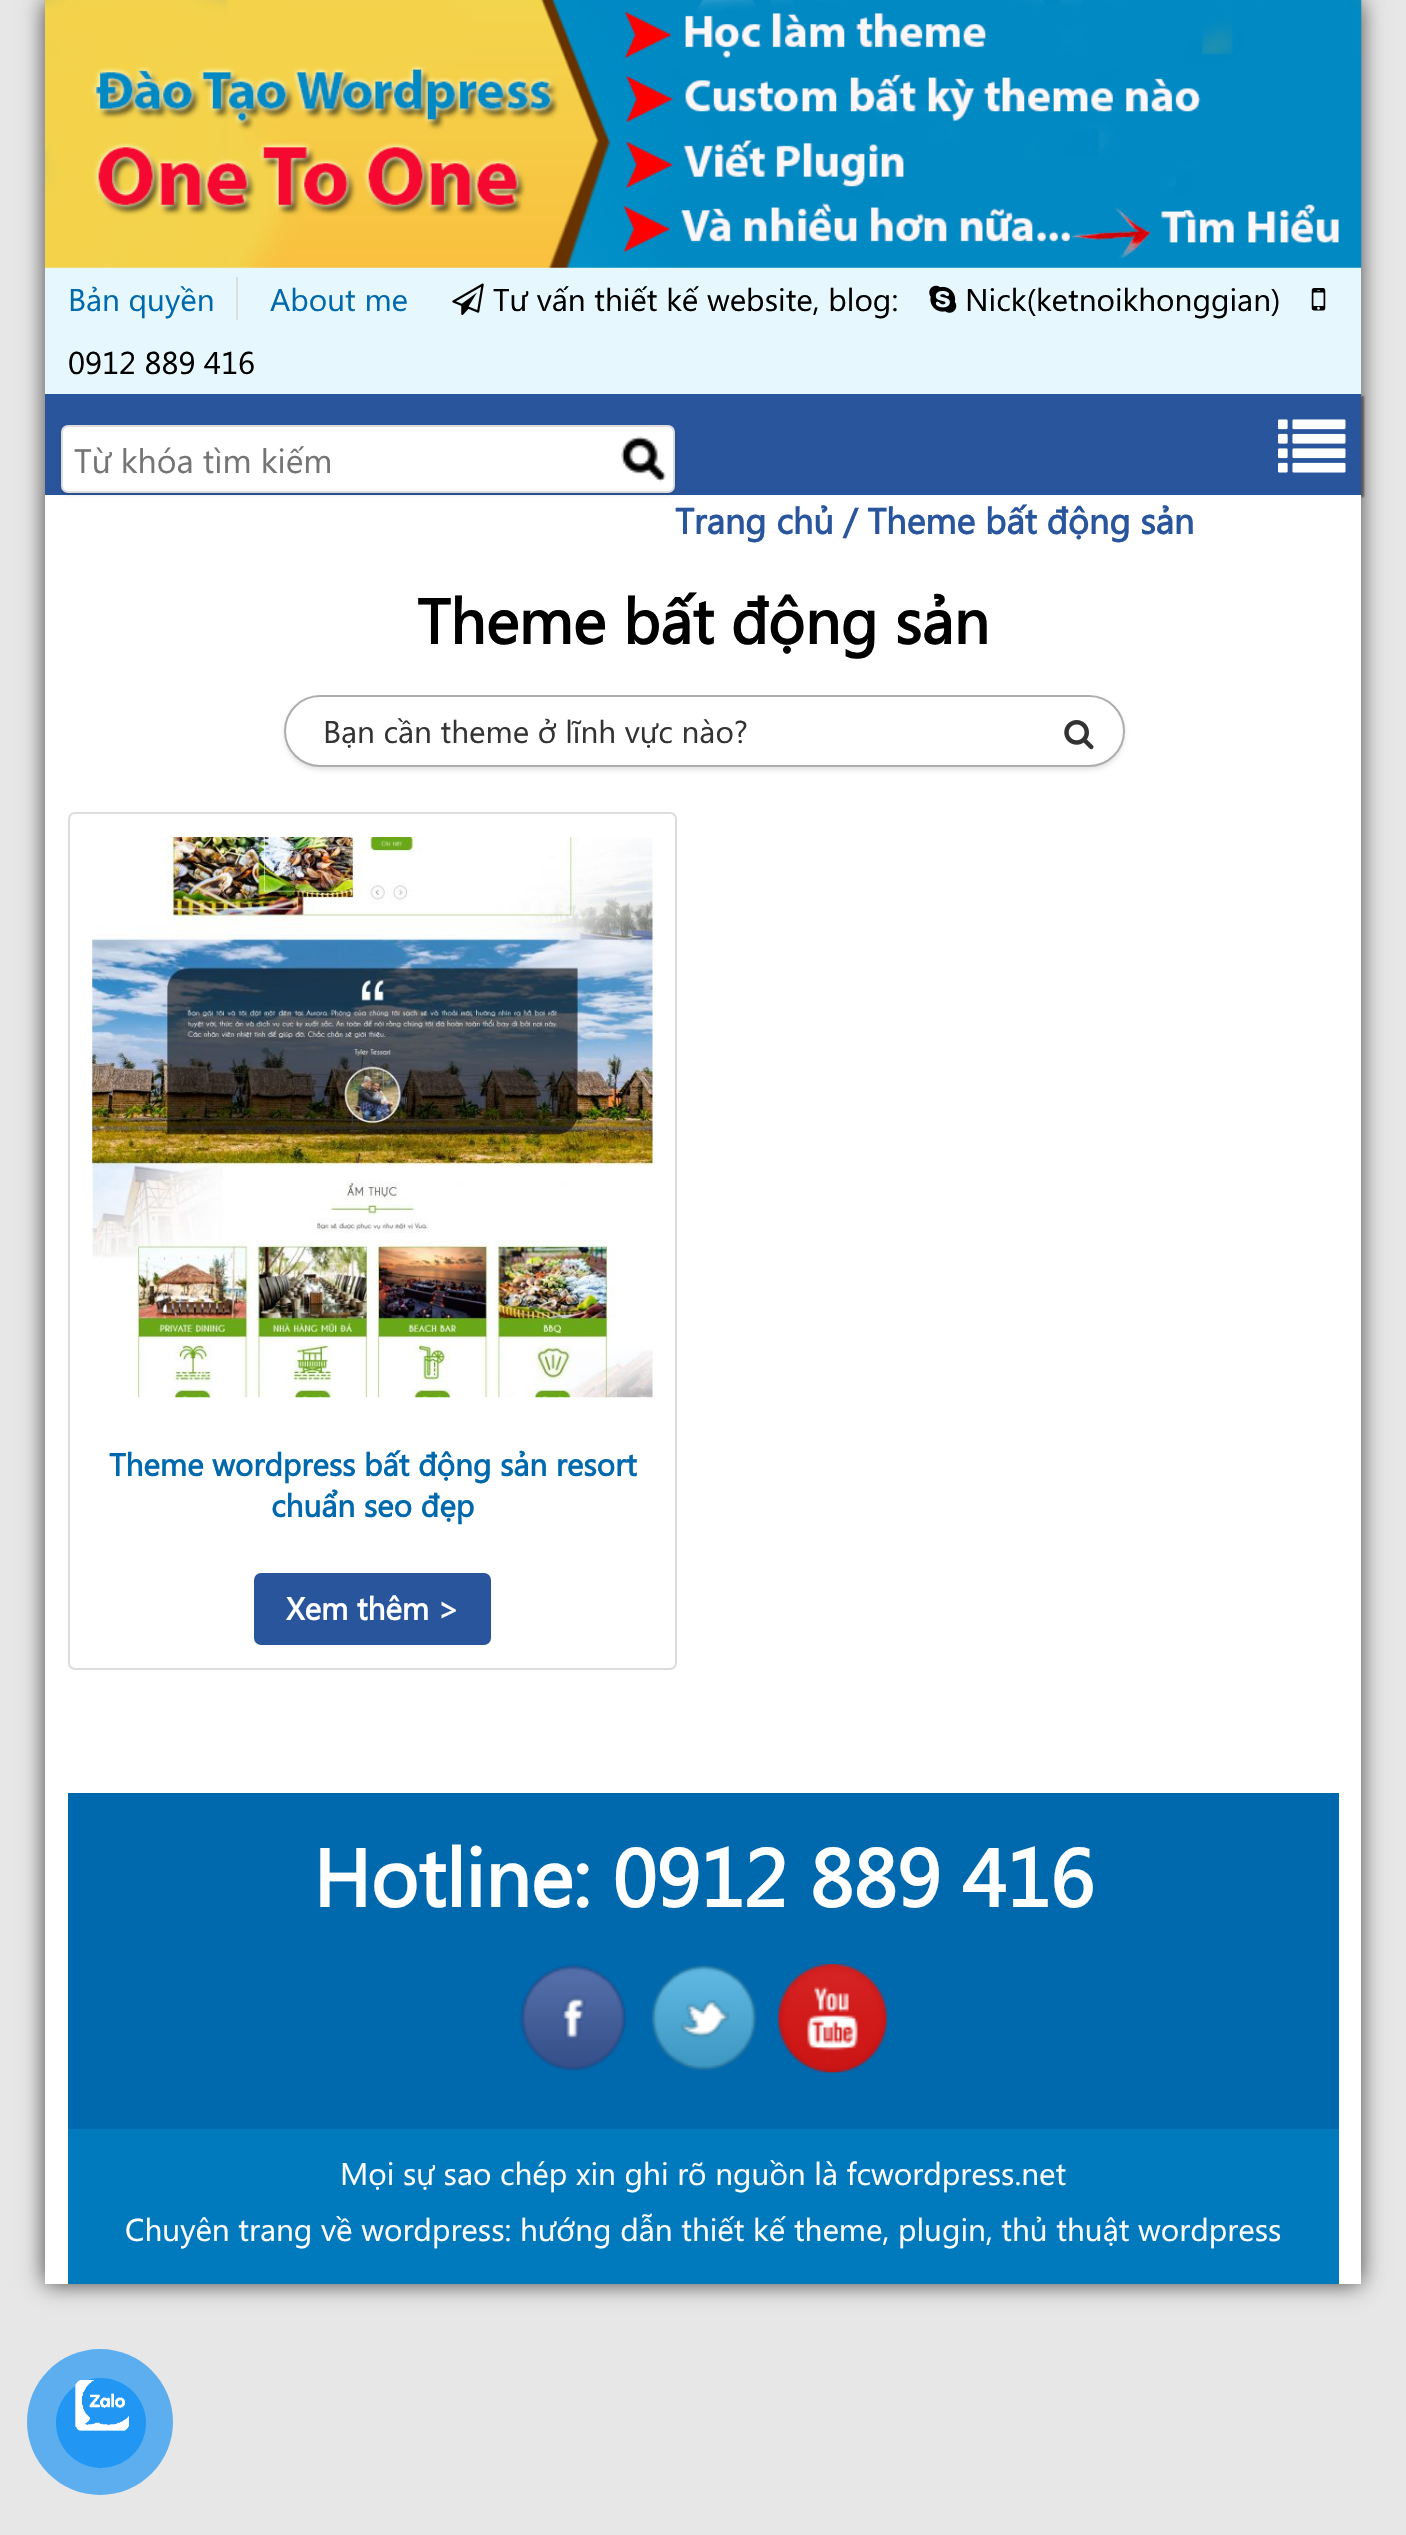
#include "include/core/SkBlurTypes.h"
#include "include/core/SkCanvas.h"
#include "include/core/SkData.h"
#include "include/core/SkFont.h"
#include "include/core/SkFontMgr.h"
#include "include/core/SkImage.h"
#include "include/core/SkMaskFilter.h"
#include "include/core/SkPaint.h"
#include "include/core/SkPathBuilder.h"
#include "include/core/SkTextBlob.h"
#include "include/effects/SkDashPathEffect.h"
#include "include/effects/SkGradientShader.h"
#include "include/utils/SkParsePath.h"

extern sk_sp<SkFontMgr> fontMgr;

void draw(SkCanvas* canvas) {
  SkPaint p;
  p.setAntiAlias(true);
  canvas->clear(SkColorSetRGB(231, 231, 231));
  p.setColor(SkColorSetARGB(179, 0, 0, 0));
  p.setMaskFilter(SkMaskFilter::MakeBlur(kNormal_SkBlurStyle, 11));
  canvas->drawRect(SkRect::MakeLTRB(45, 0, 1361, 2284), p);
  p.setMaskFilter(nullptr);
  p.setColor(SkColorSetRGB(230, 248, 253));
  canvas->drawRect(SkRect::MakeLTRB(45, 267, 1361, 394), p);
  canvas->drawImageRect(SkImages::DeferredFromEncodedData(SkData::MakeFromFileName("images/1.png")), SkRect::MakeLTRB(45, 0, 1362, 268), SkSamplingOptions());
  canvas->drawImageRect(SkImages::DeferredFromEncodedData(SkData::MakeFromFileName("images/2.png")), SkRect::MakeLTRB(452, 283, 484, 315), SkSamplingOptions());
  canvas->drawImageRect(SkImages::DeferredFromEncodedData(SkData::MakeFromFileName("images/3.png")), SkRect::MakeLTRB(929, 285, 957, 313), SkSamplingOptions());
  canvas->drawImageRect(SkImages::DeferredFromEncodedData(SkData::MakeFromFileName("images/4.png")), SkRect::MakeLTRB(1311, 288, 1326, 311), SkSamplingOptions());
  p.setColor(SkColorSetRGB(221, 221, 221));
  canvas->drawRect(SkRect::MakeLTRB(236, 277, 238, 320), p);
  p.setColor(SkColorSetRGB(87, 87, 87));
  p.setMaskFilter(SkMaskFilter::MakeBlur(kNormal_SkBlurStyle, 1));
  canvas->drawRect(SkRect::MakeLTRB(47, 396, 1364, 497), p);
  p.setMaskFilter(nullptr);
  p.setColor(SkColorSetRGB(41, 85, 156));
  canvas->drawRect(SkRect::MakeLTRB(45, 394, 1361, 495), p);
  p.setColor(SK_ColorWHITE);
  canvas->drawRect(SkRect::MakeLTRB(45, 495, 1361, 2284), p);
  p.setColor(SkColorSetARGB(26, 0, 0, 0));
  p.setMaskFilter(SkMaskFilter::MakeBlur(kNormal_SkBlurStyle, 2));
  canvas->drawRoundRect(SkRect::MakeLTRB(61, 428, 675, 495), 7, 7, p);
  p.setMaskFilter(nullptr);
  p.setColor(SK_ColorWHITE);
  canvas->drawRoundRect(SkRect::MakeLTRB(62, 426, 674, 492), 6, 6, p);
  p.setStyle(SkPaint::kStroke_Style);
  p.setStrokeWidth(2);
  p.setColor(SkColorSetRGB(221, 221, 221));
  canvas->drawRoundRect(SkRect::MakeLTRB(62, 426, 674, 492), 6, 6, p);
  canvas->drawImageRect(SkImages::DeferredFromEncodedData(SkData::MakeFromFileName("images/5.png")), SkRect::MakeLTRB(621, 436, 666, 482), SkSamplingOptions());
  canvas->drawImageRect(SkImages::DeferredFromEncodedData(SkData::MakeFromFileName("images/6.png")), SkRect::MakeLTRB(1278, 419, 1346, 473), SkSamplingOptions());
  p.setStyle(SkPaint::kFill_Style);
  p.setColor(SkColorSetARGB(26, 0, 0, 0));
  p.setMaskFilter(SkMaskFilter::MakeBlur(kNormal_SkBlurStyle, 2));
  canvas->drawRoundRect(SkRect::MakeLTRB(284, 698, 1125, 770), 36, 36, p);
  p.setMaskFilter(nullptr);
  p.setColor(SK_ColorWHITE);
  canvas->drawRoundRect(SkRect::MakeLTRB(285, 696, 1124, 766), 35, 35, p);
  p.setStyle(SkPaint::kStroke_Style);
  p.setColor(SkColorSetRGB(173, 173, 173));
  canvas->drawRoundRect(SkRect::MakeLTRB(285, 696, 1124, 766), 35, 35, p);
  canvas->drawImageRect(SkImages::DeferredFromEncodedData(SkData::MakeFromFileName("images/7.png")), SkRect::MakeLTRB(1064, 720, 1094, 750), SkSamplingOptions());
  p.setColor(SkColorSetRGB(221, 221, 221));
  canvas->drawRoundRect(SkRect::MakeLTRB(69, 813, 676, 1669), 6, 6, p);
  canvas->drawImageRect(SkImages::DeferredFromEncodedData(SkData::MakeFromFileName("images/8.png")), SkRect::MakeLTRB(92, 837, 653, 1398), SkSamplingOptions());
  p.setStyle(SkPaint::kFill_Style);
  p.setColor(SkColorSetRGB(41, 85, 156));
  canvas->drawRoundRect(SkRect::MakeLTRB(254, 1573, 491, 1645), 7, 7, p);
  p.setColor(SkColorSetRGB(0, 105, 173));
  canvas->drawRect(SkRect::MakeLTRB(68, 1793, 1339, 2129), p);
  canvas->drawImageRect(SkImages::DeferredFromEncodedData(SkData::MakeFromFileName("images/9.png")), SkRect::MakeLTRB(520, 1964, 626, 2071), SkSamplingOptions());
  canvas->drawImageRect(SkImages::DeferredFromEncodedData(SkData::MakeFromFileName("images/10.png")), SkRect::MakeLTRB(650, 1964, 757, 2071), SkSamplingOptions());
  canvas->drawImageRect(SkImages::DeferredFromEncodedData(SkData::MakeFromFileName("images/11.png")), SkRect::MakeLTRB(778, 1964, 887, 2073), SkSamplingOptions());
  p.setColor(SkColorSetRGB(0, 121, 189));
  canvas->drawRect(SkRect::MakeLTRB(68, 2129, 1339, 2284), p);
  p.setColor(SkColorSetRGB(92, 174, 239));
  canvas->drawCircle(100, 2422, 73, p);
  p.setColor(SkColorSetRGB(33, 150, 243));
  canvas->drawCircle(101, 2423, 45, p);
  canvas->drawImageRect(SkImages::DeferredFromEncodedData(SkData::MakeFromFileName("images/12.png")), SkRect::MakeLTRB(75, 2380, 129, 2431), SkSamplingOptions());
  SkFont font1(fontMgr->matchFamilyStyle("Segoe UI", SkFontStyle::Normal()), 31.5f);
  font1.setSubpixel(true);
  p.setColor(SK_ColorBLACK);
  canvas->drawString("Tư vấn thiết kế website, blog:", 493, 311, font1, p);
  canvas->drawString("Nick(ketnoikhonggian)", 965, 311, font1, p);
  canvas->drawString("0912 889 416", 68, 374, font1, p);
  p.setColor(SkColorSetRGB(0, 105, 173));
  canvas->drawString("Bản quyền", 68, 311, font1, p);
  canvas->drawString("About me", 270, 311, font1, p);
  SkFont font2(fontMgr->matchFamilyStyle("Segoe UI", SkFontStyle::Normal()), 33.75f);
  font2.setSubpixel(true);
  p.setColor(SkColorSetRGB(117, 117, 117));
  canvas->drawString("Từ khóa tìm kiếm", 74, 473, font2, p);
  SkFont font3(fontMgr->matchFamilyStyle("Segoe UI", SkFontStyle::Bold()), 36);
  font3.setSubpixel(true);
  p.setColor(SkColorSetRGB(41, 85, 156));
  canvas->drawString("Trang chủ / Theme bất động sản", 675, 534, font3, p);
  SkFont font4(fontMgr->matchFamilyStyle("Segoe UI", SkFontStyle::Bold()), 63);
  font4.setSubpixel(true);
  p.setColor(SK_ColorBLACK);
  canvas->drawString("Theme bất động sản", 417, 644, font4, p);
  p.setColor(SkColorSetRGB(51, 51, 51));
  canvas->drawString("Bạn cần theme ở lĩnh vực nào?", 323, 743, font1, p);
  SkFont font5(fontMgr->matchFamilyStyle("Segoe UI", SkFontStyle::Bold()), 31.5f);
  font5.setSubpixel(true);
  p.setColor(SkColorSetRGB(0, 105, 173));
  canvas->drawString("Theme wordpress bất động sản resort", 109, 1476, font5, p);
  canvas->drawString("chuẩn seo đẹp", 271, 1517, font5, p);
  p.setColor(SK_ColorWHITE);
  canvas->drawString("Xem thêm >", 286, 1620, font5, p);
  SkFont font6(fontMgr->matchFamilyStyle("Segoe UI", SkFontStyle::Bold()), 81);
  font6.setSubpixel(true);
  canvas->drawString("Hotline: 0912 889 416", 313, 1907, font6, p);
  canvas->drawString("Mọi sự sao chép xin ghi rõ nguồn là fcwordpress.net", 340, 2185, font1, p);
  canvas->drawString("Chuyên trang về wordpress: hướng dẫn thiết kế theme, plugin, thủ thuật wordpress", 125, 2241, font1, p);
}
